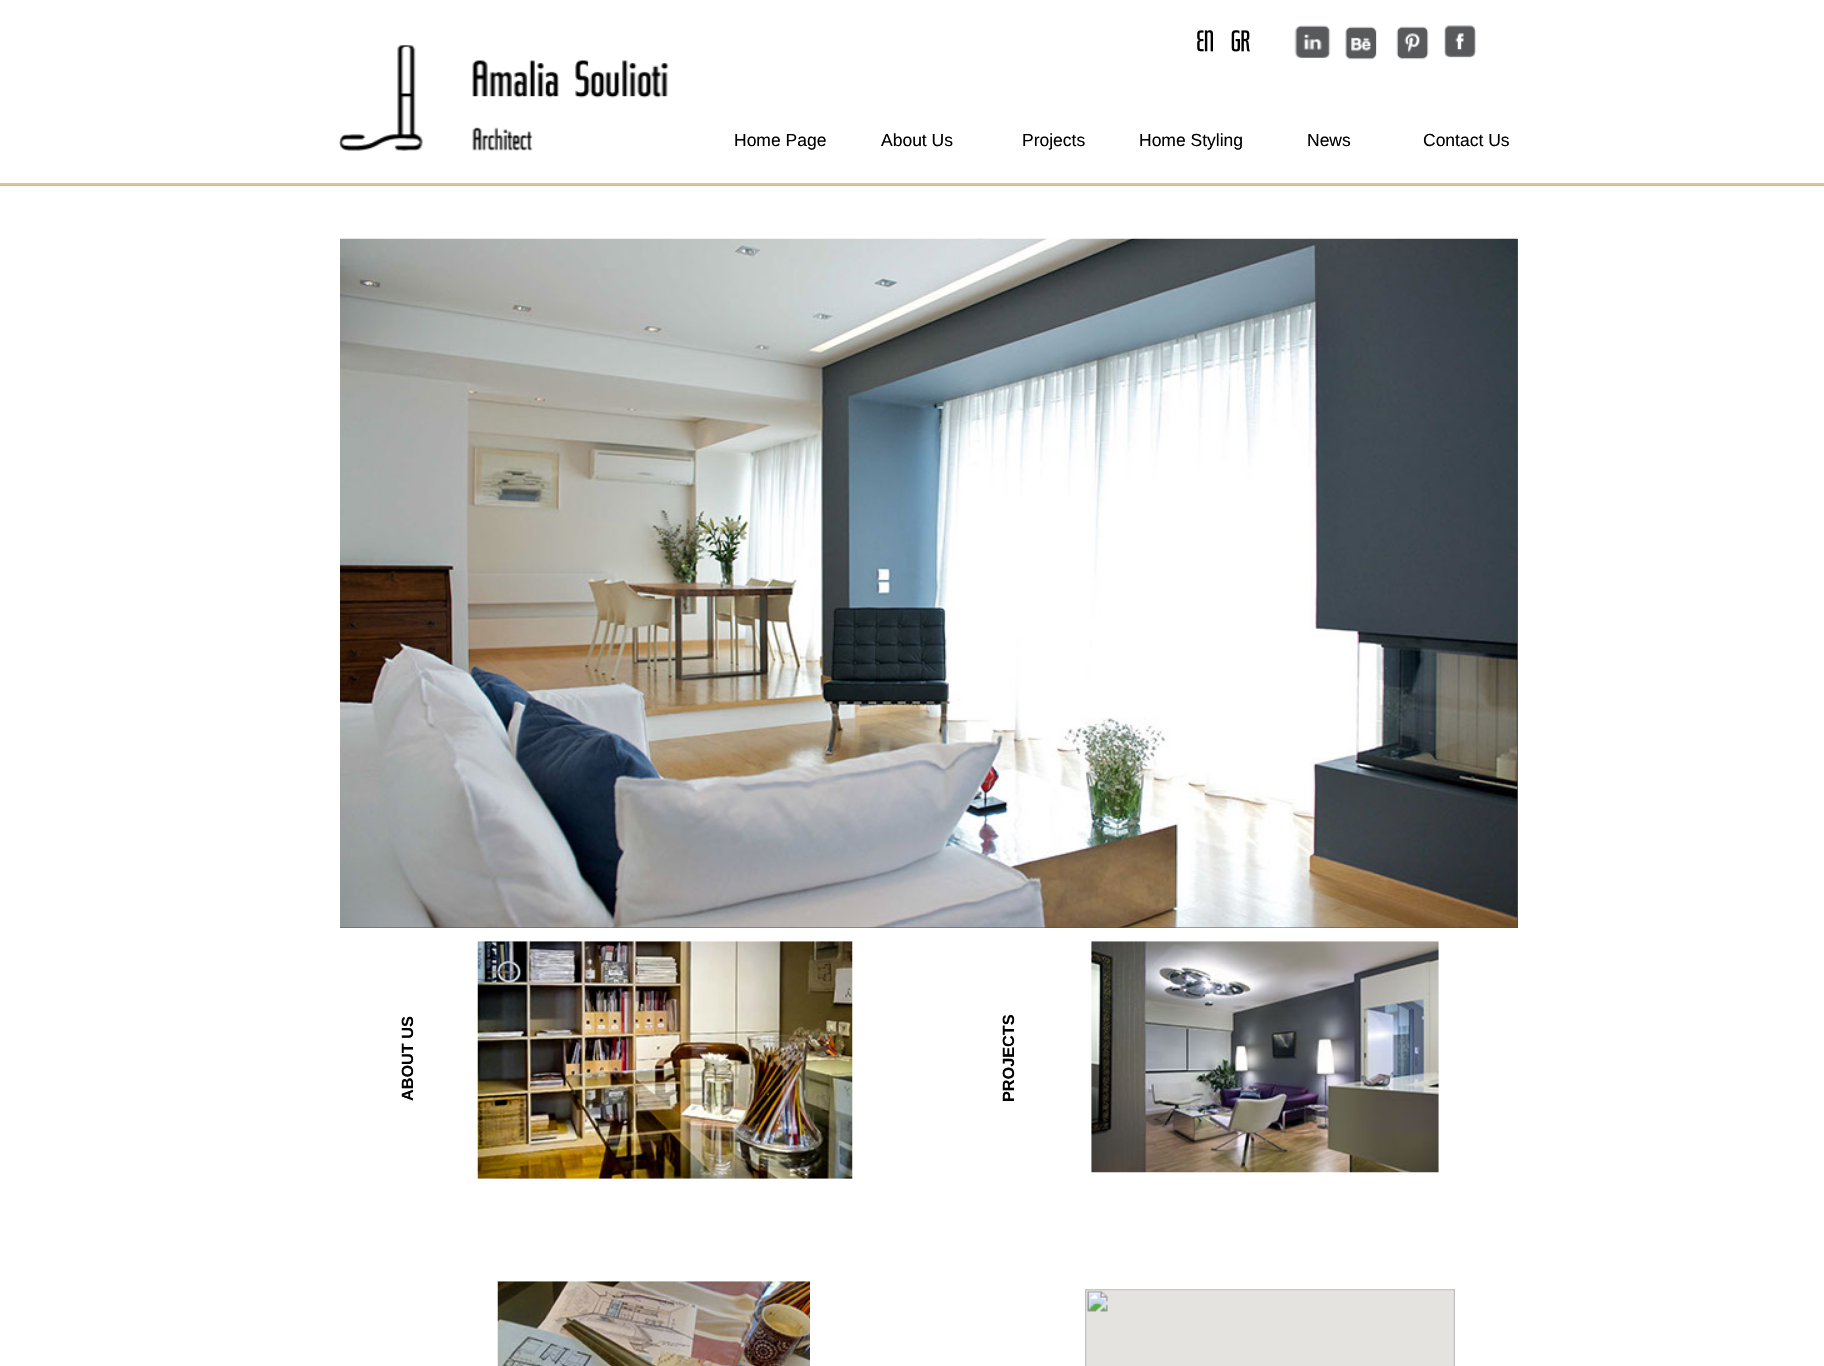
#include "include/core/SkBlurTypes.h"
#include "include/core/SkCanvas.h"
#include "include/core/SkData.h"
#include "include/core/SkFont.h"
#include "include/core/SkFontMgr.h"
#include "include/core/SkImage.h"
#include "include/core/SkMaskFilter.h"
#include "include/core/SkPaint.h"
#include "include/core/SkPathBuilder.h"
#include "include/core/SkTextBlob.h"
#include "include/effects/SkDashPathEffect.h"
#include "include/effects/SkGradientShader.h"
#include "include/utils/SkParsePath.h"

extern sk_sp<SkFontMgr> fontMgr;

void draw(SkCanvas* canvas) {
  SkPaint p;
  p.setAntiAlias(true);
  canvas->clear(SK_ColorWHITE);
  canvas->drawImageRect(SkImages::DeferredFromEncodedData(SkData::MakeFromFileName("images/1.png")), SkRect::MakeLTRB(1197, 30, 1250, 52), SkSamplingOptions());
  canvas->drawImageRect(SkImages::DeferredFromEncodedData(SkData::MakeFromFileName("images/2.png")), SkRect::MakeLTRB(1294, 25, 1331, 58), SkSamplingOptions());
  canvas->drawImageRect(SkImages::DeferredFromEncodedData(SkData::MakeFromFileName("images/3.png")), SkRect::MakeLTRB(1345, 26, 1377, 60), SkSamplingOptions());
  canvas->drawImageRect(SkImages::DeferredFromEncodedData(SkData::MakeFromFileName("images/4.png")), SkRect::MakeLTRB(1396, 26, 1429, 60), SkSamplingOptions());
  canvas->drawImageRect(SkImages::DeferredFromEncodedData(SkData::MakeFromFileName("images/5.png")), SkRect::MakeLTRB(1444, 25, 1476, 58), SkSamplingOptions());
  canvas->drawImageRect(SkImages::DeferredFromEncodedData(SkData::MakeFromFileName("images/6.png")), SkRect::MakeLTRB(339, 45, 669, 151), SkSamplingOptions());
  p.setColor(SkColorSetRGB(216, 184, 148));
  canvas->drawRect(SkRect::MakeLTRB(0, 185, 1824, 186), p);
  p.setColor(SkColorSetRGB(223, 195, 150));
  canvas->drawRect(SkRect::MakeLTRB(0, 183, 1824, 185), p);
  p.setColor(SkColorSetRGB(79, 79, 79));
  canvas->drawRect(SkRect::MakeLTRB(340, 239, 1518, 928), p);
  canvas->drawImageRect(SkImages::DeferredFromEncodedData(SkData::MakeFromFileName("images/7.png")), SkRect::MakeLTRB(340, 238, 1518, 928), SkSamplingOptions());
  canvas->drawImageRect(SkImages::DeferredFromEncodedData(SkData::MakeFromFileName("images/8.png")), SkRect::MakeLTRB(477, 941, 853, 1179), SkSamplingOptions());
  canvas->drawImageRect(SkImages::DeferredFromEncodedData(SkData::MakeFromFileName("images/9.png")), SkRect::MakeLTRB(1091, 941, 1439, 1173), SkSamplingOptions());
  canvas->drawImageRect(SkImages::DeferredFromEncodedData(SkData::MakeFromFileName("images/10.png")), SkRect::MakeLTRB(497, 1281, 810, 1366), SkSamplingOptions());
  canvas->drawImageRect(SkImages::DeferredFromEncodedData(SkData::MakeFromFileName("images/11.png")), SkRect::MakeLTRB(1085, 1289, 1455, 1366), SkSamplingOptions());
  SkFont font1(fontMgr->matchFamilyStyle("Liberation Sans", SkFontStyle::Normal()), 17.5f);
  font1.setSubpixel(true);
  p.setColor(SK_ColorBLACK);
  canvas->drawString("Home Page", 734, 146, font1, p);
  canvas->drawString("About Us", 881, 146, font1, p);
  canvas->drawString("Projects", 1022, 146, font1, p);
  canvas->drawString("Home Styling", 1139, 146, font1, p);
  canvas->drawString("News", 1307, 146, font1, p);
  canvas->drawString("Contact Us", 1423, 146, font1, p);
  SkFont font2(fontMgr->matchFamilyStyle("Liberation Sans", SkFontStyle::Bold()), 16.25f);
  font2.setSubpixel(true);
  canvas->save();
  canvas->rotate(-90, 413, 1101);
  canvas->drawString("ABOUT US", 413, 1101, font2, p);
  canvas->restore();
  canvas->save();
  canvas->rotate(-90, 1014, 1102);
  canvas->drawString("PROJECTS", 1014, 1102, font2, p);
  canvas->restore();
}
